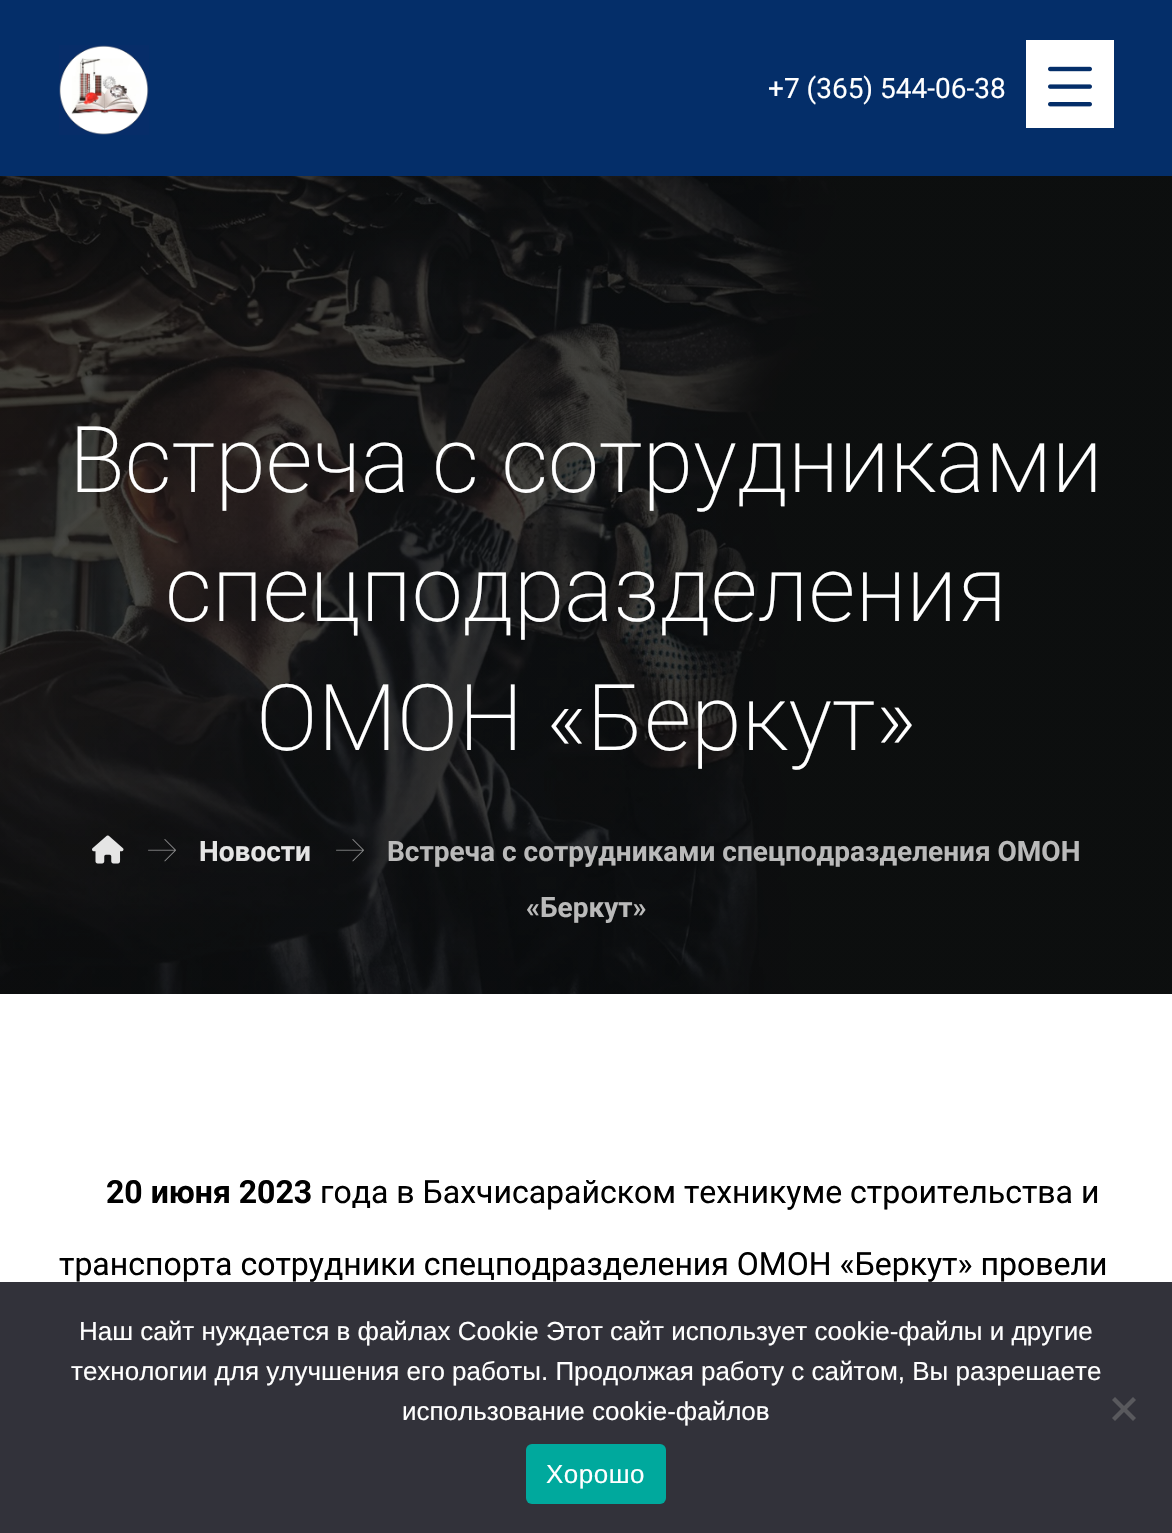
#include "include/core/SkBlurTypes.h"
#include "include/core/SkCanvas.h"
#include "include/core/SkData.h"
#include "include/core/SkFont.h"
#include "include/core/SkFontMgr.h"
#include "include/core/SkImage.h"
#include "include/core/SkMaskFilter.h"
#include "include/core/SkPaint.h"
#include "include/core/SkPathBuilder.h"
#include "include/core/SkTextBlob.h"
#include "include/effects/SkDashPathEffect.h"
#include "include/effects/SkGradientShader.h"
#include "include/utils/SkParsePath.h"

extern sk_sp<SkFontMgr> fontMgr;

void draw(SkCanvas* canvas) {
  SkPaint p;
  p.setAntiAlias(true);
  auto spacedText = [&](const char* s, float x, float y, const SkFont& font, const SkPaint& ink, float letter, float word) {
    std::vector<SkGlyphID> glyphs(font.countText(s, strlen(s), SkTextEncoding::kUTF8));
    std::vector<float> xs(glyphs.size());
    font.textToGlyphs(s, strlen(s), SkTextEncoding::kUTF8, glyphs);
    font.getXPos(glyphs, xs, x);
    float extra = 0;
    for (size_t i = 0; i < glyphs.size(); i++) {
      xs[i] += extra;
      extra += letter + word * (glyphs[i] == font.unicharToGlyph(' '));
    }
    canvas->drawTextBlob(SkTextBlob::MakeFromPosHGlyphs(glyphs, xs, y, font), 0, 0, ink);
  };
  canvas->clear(SK_ColorWHITE);
  p.setColor(SkColorSetRGB(4, 46, 105));
  canvas->drawRect(SkRect::MakeLTRB(0, 0, 1172, 176), p);
  canvas->drawImageRect(SkImages::DeferredFromEncodedData(SkData::MakeFromFileName("images/1.png")), SkRect::MakeLTRB(59, 45, 149, 135), SkSamplingOptions());
  p.setColor(SK_ColorWHITE);
  canvas->drawRect(SkRect::MakeLTRB(1026, 40, 1114, 128), p);
  canvas->drawImageRect(SkImages::DeferredFromEncodedData(SkData::MakeFromFileName("images/2.png")), SkRect::MakeLTRB(1048, 66, 1092, 107), SkSamplingOptions());
  canvas->drawImageRect(SkImages::DeferredFromEncodedData(SkData::MakeFromFileName("images/3.png")), SkRect::MakeLTRB(0, 176, 1172, 994), SkSamplingOptions());
  canvas->drawImageRect(SkImages::DeferredFromEncodedData(SkData::MakeFromFileName("images/4.png")), SkRect::MakeLTRB(92, 835, 124, 864), SkSamplingOptions());
  canvas->drawImageRect(SkImages::DeferredFromEncodedData(SkData::MakeFromFileName("images/5.png")), SkRect::MakeLTRB(148, 839, 176, 862), SkSamplingOptions());
  canvas->drawImageRect(SkImages::DeferredFromEncodedData(SkData::MakeFromFileName("images/6.png")), SkRect::MakeLTRB(336, 839, 364, 862), SkSamplingOptions());
  p.setColor(SkColorSetRGB(50, 50, 58));
  canvas->drawRect(SkRect::MakeLTRB(0, 1282, 1172, 1533), p);
  p.setColor(SkColorSetRGB(89, 89, 93));
  canvas->drawPath(SkPathBuilder().moveTo(1133, 1397).lineTo(1136, 1400).lineTo(1115, 1421).lineTo(1112, 1418).close().detach(), p);
  canvas->drawPath(SkPathBuilder().moveTo(1112, 1400).lineTo(1115, 1397).lineTo(1136, 1418).lineTo(1133, 1421).close().detach(), p);
  p.setColor(SkColorSetRGB(0, 169, 157));
  canvas->drawRoundRect(SkRect::MakeLTRB(526, 1444, 666, 1504), 6, 6, p);
  SkFont font1(fontMgr->matchFamilyStyle("Roboto", SkFontStyle::Normal()), 28);
  font1.setSubpixel(true);
  p.setColor(SK_ColorWHITE);
  canvas->drawString("+7 (365) 544-06-38", 768, 98, font1, p);
  SkFont font2(fontMgr->matchFamilyStyle("Roboto", SkFontStyle(200, SkFontStyle::kNormal_Width, SkFontStyle::kUpright_Slant)), 92);
  font2.setSubpixel(true);
  canvas->drawString("Встреча с сотрудниками", 69, 492, font2, p);
  canvas->drawString("спецподразделения", 165, 621, font2, p);
  canvas->drawString("ОМОН «Беркут»", 256, 750, font2, p);
  SkFont font3(fontMgr->matchFamilyStyle("Roboto", SkFontStyle::Bold()), 28);
  font3.setSubpixel(true);
  p.setColor(SkColorSetRGB(229, 229, 229));
  canvas->drawString("Новости", 199, 861, font3, p);
  p.setColor(SkColorSetRGB(186, 186, 186));
  canvas->drawString("Встреча с сотрудниками спецподразделения ОМОН", 387, 861, font3, p);
  canvas->drawString("«Беркут»", 526, 917, font3, p);
  SkFont font4(fontMgr->matchFamilyStyle("Roboto", SkFontStyle::Bold()), 32);
  font4.setSubpixel(true);
  p.setColor(SK_ColorBLACK);
  canvas->drawString("20 июня 2023", 106, 1203, font4, p);
  SkFont font5(fontMgr->matchFamilyStyle("Roboto", SkFontStyle::Normal()), 32);
  font5.setSubpixel(true);
  canvas->drawString("года в Бахчисарайском техникуме строительства и", 320, 1203, font5, p);
  canvas->drawString("транспорта сотрудники спецподразделения ОМОН «Беркут» провели", 59, 1275, font5, p);
  SkFont font6(fontMgr->matchFamilyStyle("Liberation Sans", SkFontStyle::Normal()), 26);
  font6.setSubpixel(true);
  p.setColor(SK_ColorWHITE);
  canvas->drawString("Наш сайт нуждается в файлах Cookie Этот сайт использует cookie-файлы и другие", 79, 1340, font6, p);
  canvas->drawString("технологии для улучшения его работы. Продолжая работу с сайтом, Вы разрешаете", 71, 1380, font6, p);
  canvas->drawString("использование cookie-файлов", 402, 1420, font6, p);
  spacedText("Хорошо", 546, 1483, font6, p, 0.5f, 0);
}
